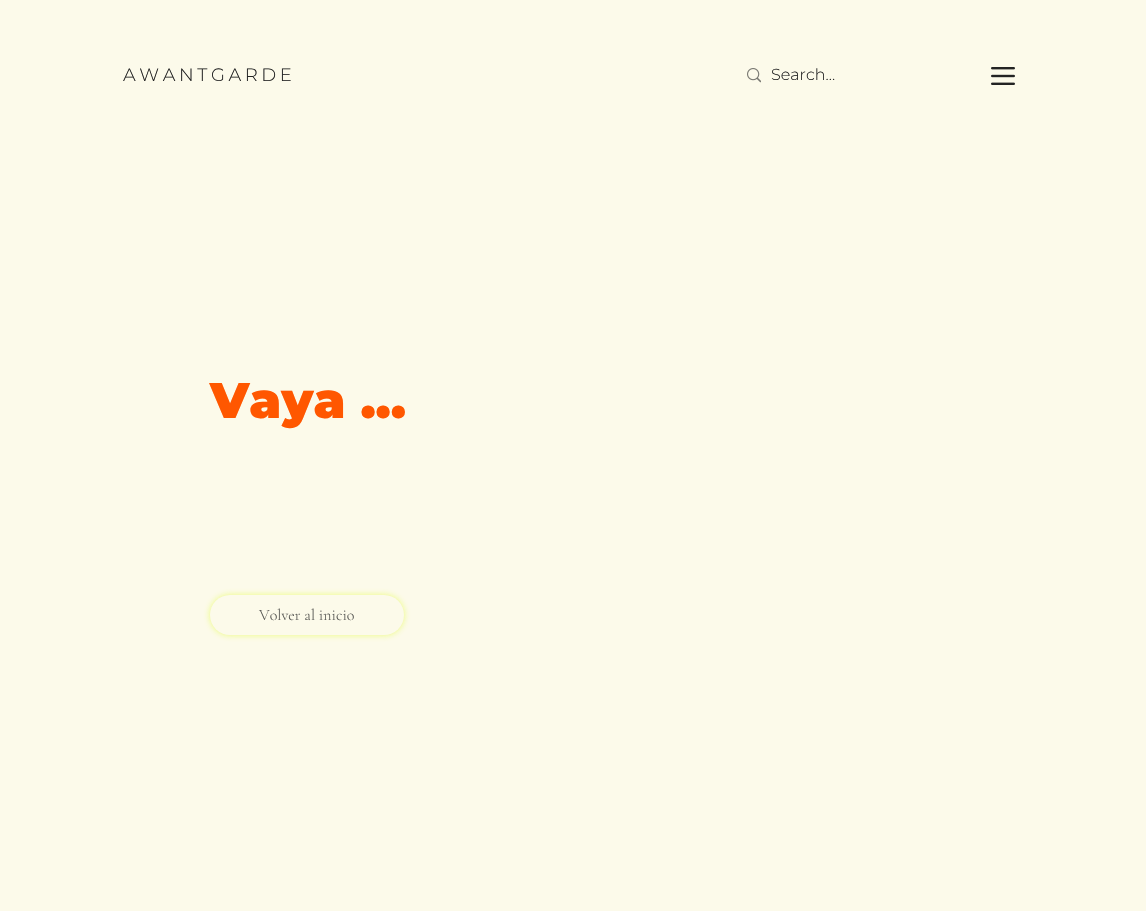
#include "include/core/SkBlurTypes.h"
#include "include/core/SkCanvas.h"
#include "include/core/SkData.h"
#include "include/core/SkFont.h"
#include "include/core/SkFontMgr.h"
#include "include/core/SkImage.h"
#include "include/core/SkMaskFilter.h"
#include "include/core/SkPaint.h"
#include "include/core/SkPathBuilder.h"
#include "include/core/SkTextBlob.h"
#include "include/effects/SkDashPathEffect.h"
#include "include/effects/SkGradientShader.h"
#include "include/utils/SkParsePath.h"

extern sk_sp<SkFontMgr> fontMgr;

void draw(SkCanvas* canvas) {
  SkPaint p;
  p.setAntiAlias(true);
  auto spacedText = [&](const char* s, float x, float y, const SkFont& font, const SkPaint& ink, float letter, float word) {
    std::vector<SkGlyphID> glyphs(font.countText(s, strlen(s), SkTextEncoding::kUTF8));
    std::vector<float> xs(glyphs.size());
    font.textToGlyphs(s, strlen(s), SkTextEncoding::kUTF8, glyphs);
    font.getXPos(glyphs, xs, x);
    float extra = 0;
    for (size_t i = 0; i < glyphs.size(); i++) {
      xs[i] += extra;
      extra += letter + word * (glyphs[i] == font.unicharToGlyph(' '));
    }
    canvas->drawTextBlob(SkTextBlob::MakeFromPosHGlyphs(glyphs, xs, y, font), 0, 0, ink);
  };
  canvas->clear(SkColorSetRGB(252, 250, 234));
  canvas->drawImageRect(SkImages::DeferredFromEncodedData(SkData::MakeFromFileName("images/1.png")), SkRect::MakeLTRB(747, 68, 761, 83), SkSamplingOptions());
  canvas->drawImageRect(SkImages::DeferredFromEncodedData(SkData::MakeFromFileName("images/2.png")), SkRect::MakeLTRB(991, 67, 1015, 85), SkSamplingOptions());
  p.setColor(SkColorSetARGB(153, 224, 253, 44));
  p.setMaskFilter(SkMaskFilter::MakeBlur(kNormal_SkBlurStyle, 3));
  canvas->drawRoundRect(SkRect::MakeLTRB(210, 595, 404, 635), 20, 20, p);
  p.setMaskFilter(nullptr);
  p.setColor(SkColorSetRGB(252, 250, 234));
  canvas->drawRoundRect(SkRect::MakeLTRB(210, 595, 404, 635), 20, 20, p);
  SkFont font1(fontMgr->matchFamilyStyle("Montserrat", SkFontStyle(300, SkFontStyle::kNormal_Width, SkFontStyle::kUpright_Slant)), 18);
  font1.setSubpixel(true);
  p.setColor(SkColorSetRGB(35, 35, 35));
  spacedText("AWANTGARDE", 123, 81, font1, p, 3.6f, 0);
  SkFont font2(fontMgr->matchFamilyStyle("Montserrat", SkFontStyle(300, SkFontStyle::kNormal_Width, SkFontStyle::kUpright_Slant)), 16);
  font2.setSubpixel(true);
  canvas->drawString("Search...", 771, 80, font2, p);
  SkFont font3(fontMgr->matchFamilyStyle("Montserrat", SkFontStyle(100, SkFontStyle::kNormal_Width, SkFontStyle::kUpright_Slant)), 50);
  font3.setSubpixel(true);
  p.setColor(SkColorSetRGB(255, 87, 0));
  canvas->drawString("Vaya ...", 210, 418, font3, p);
  SkFont font4(fontMgr->matchFamilyStyle("Cormorant Garamond", SkFontStyle(300, SkFontStyle::kNormal_Width, SkFontStyle::kUpright_Slant)), 16);
  font4.setSubpixel(true);
  p.setColor(SkColorSetRGB(89, 89, 85));
  canvas->drawString("Volver al inicio", 259, 620, font4, p);
}
